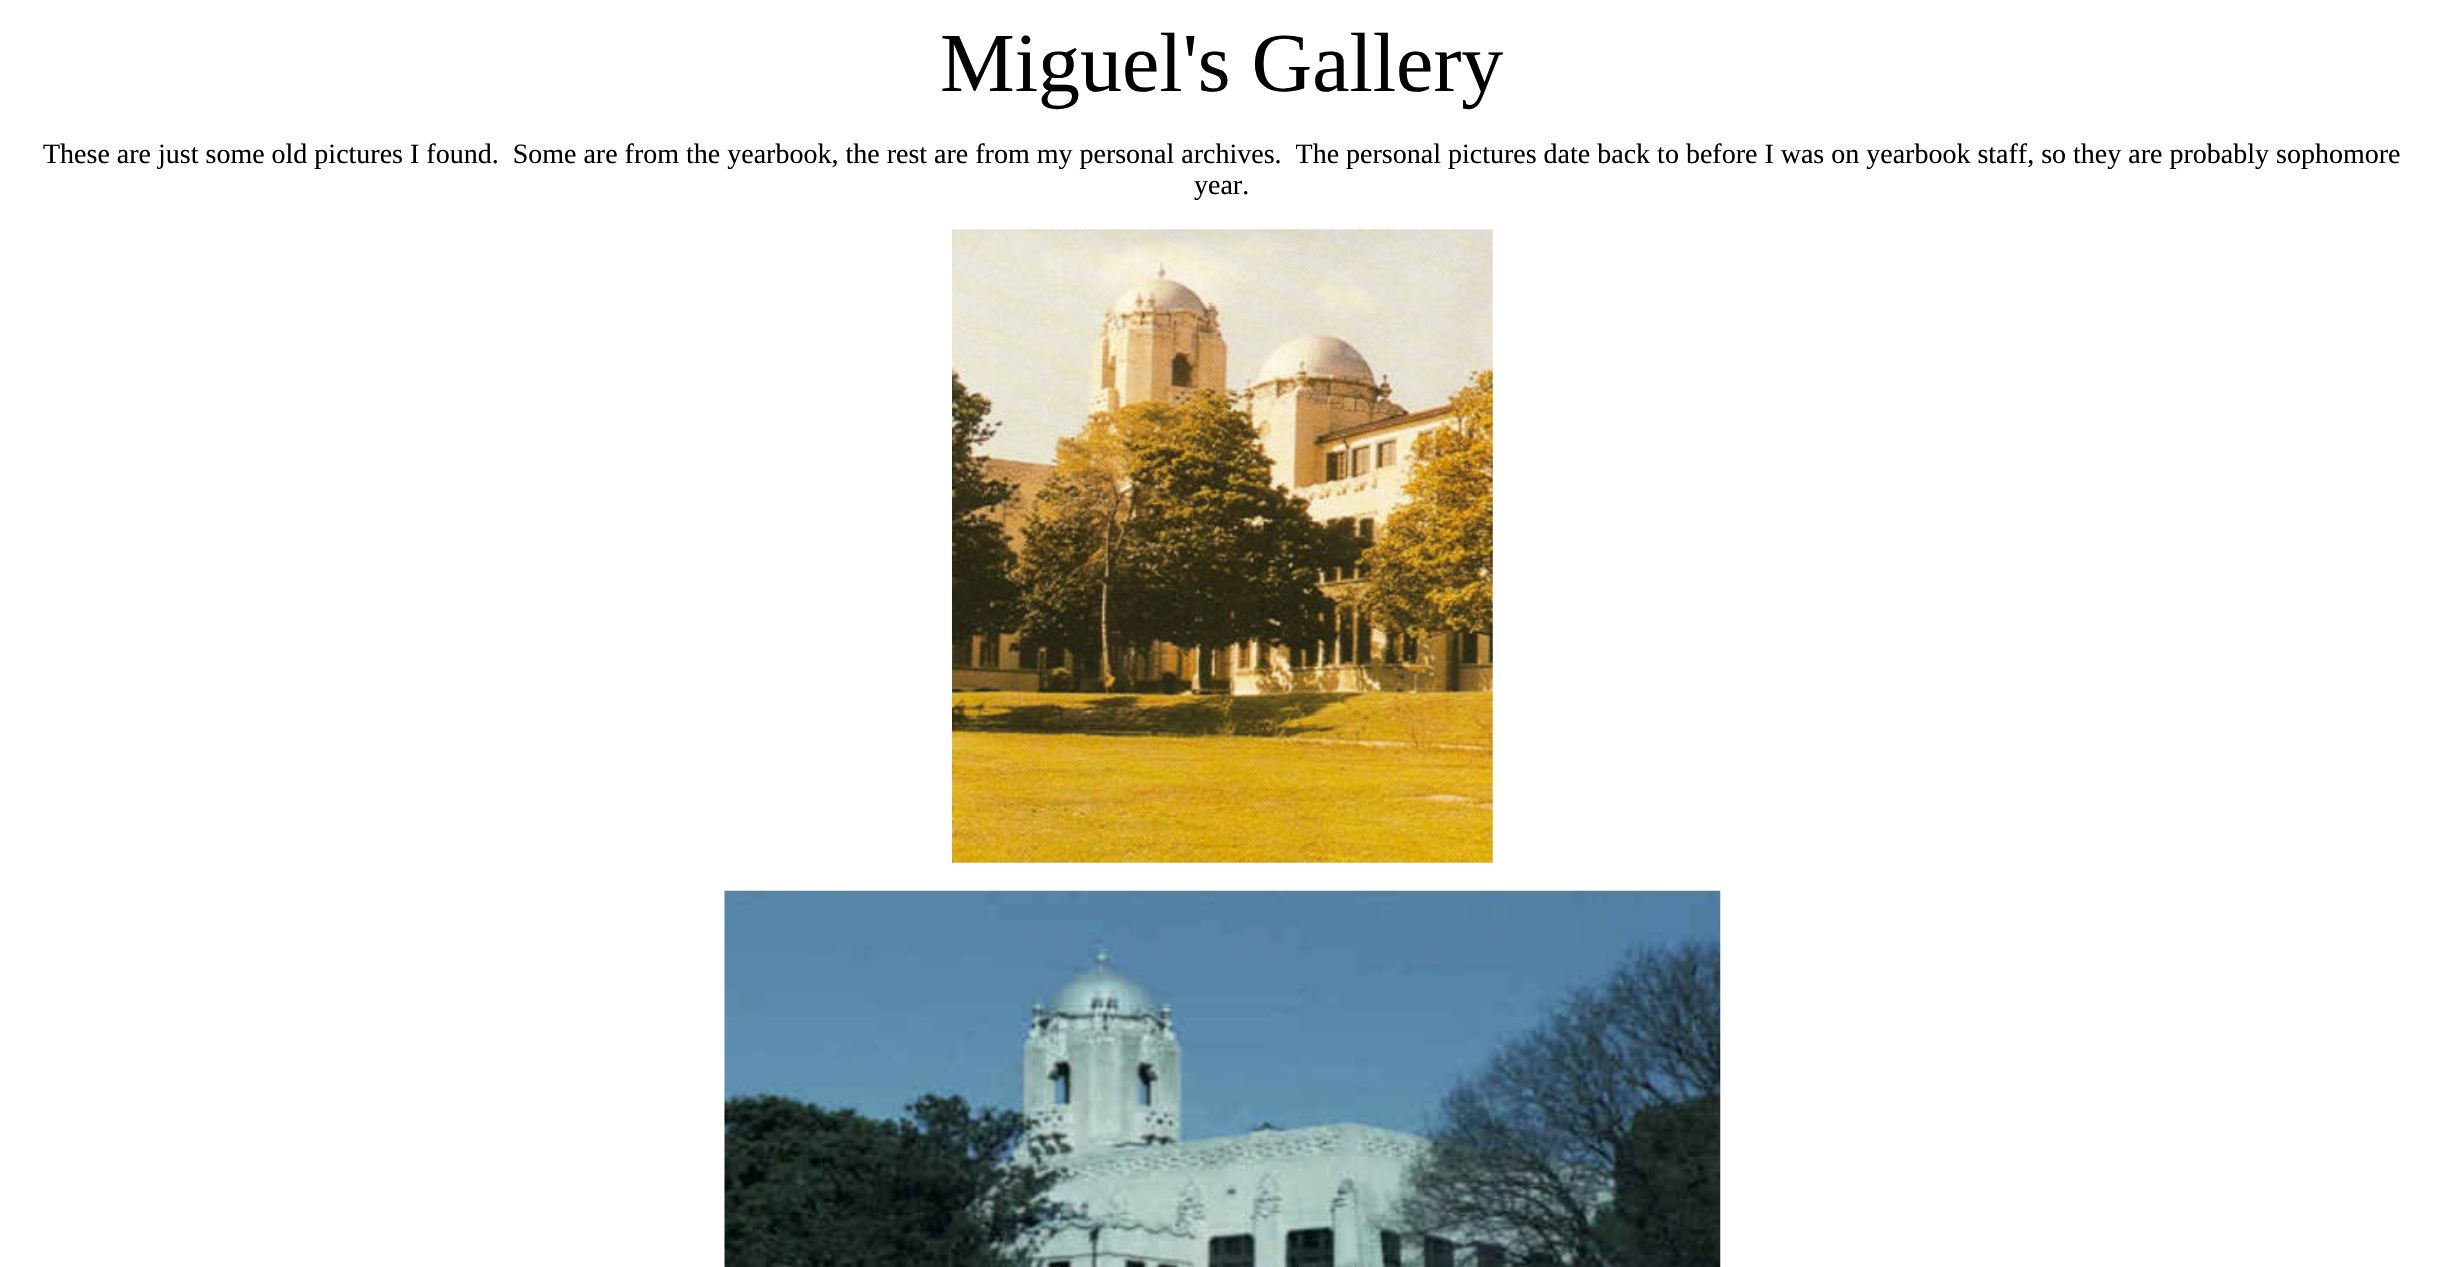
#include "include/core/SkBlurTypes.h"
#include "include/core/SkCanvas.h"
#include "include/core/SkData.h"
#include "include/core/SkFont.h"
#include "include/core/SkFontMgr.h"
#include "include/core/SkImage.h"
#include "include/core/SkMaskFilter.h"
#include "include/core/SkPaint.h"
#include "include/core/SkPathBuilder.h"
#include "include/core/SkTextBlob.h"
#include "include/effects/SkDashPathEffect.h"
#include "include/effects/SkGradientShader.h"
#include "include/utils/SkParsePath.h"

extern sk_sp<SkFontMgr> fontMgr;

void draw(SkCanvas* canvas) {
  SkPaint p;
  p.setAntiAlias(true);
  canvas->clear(SK_ColorWHITE);
  canvas->drawImageRect(SkImages::DeferredFromEncodedData(SkData::MakeFromFileName("images/1.png")), SkRect::MakeLTRB(952, 229, 1493, 863), SkSamplingOptions());
  canvas->drawImageRect(SkImages::DeferredFromEncodedData(SkData::MakeFromFileName("images/2.png")), SkRect::MakeLTRB(724, 890, 1721, 1267), SkSamplingOptions());
  SkFont font1(fontMgr->matchFamilyStyle("Liberation Serif", SkFontStyle::Normal()), 84);
  font1.setSubpixel(true);
  p.setColor(SK_ColorBLACK);
  canvas->drawString("Miguel's Gallery", 940, 91, font1, p);
  SkFont font2(fontMgr->matchFamilyStyle("Liberation Serif", SkFontStyle::Normal()), 28);
  font2.setSubpixel(true);
  canvas->drawString("These are just some old pictures I found.  Some are from the yearbook, the rest are from my personal archives.  The personal pictures date back to before I was on yearbook staff, so they are probably sophomore", 43, 163, font2, p);
  canvas->drawString("year.", 1194, 194, font2, p);
}
